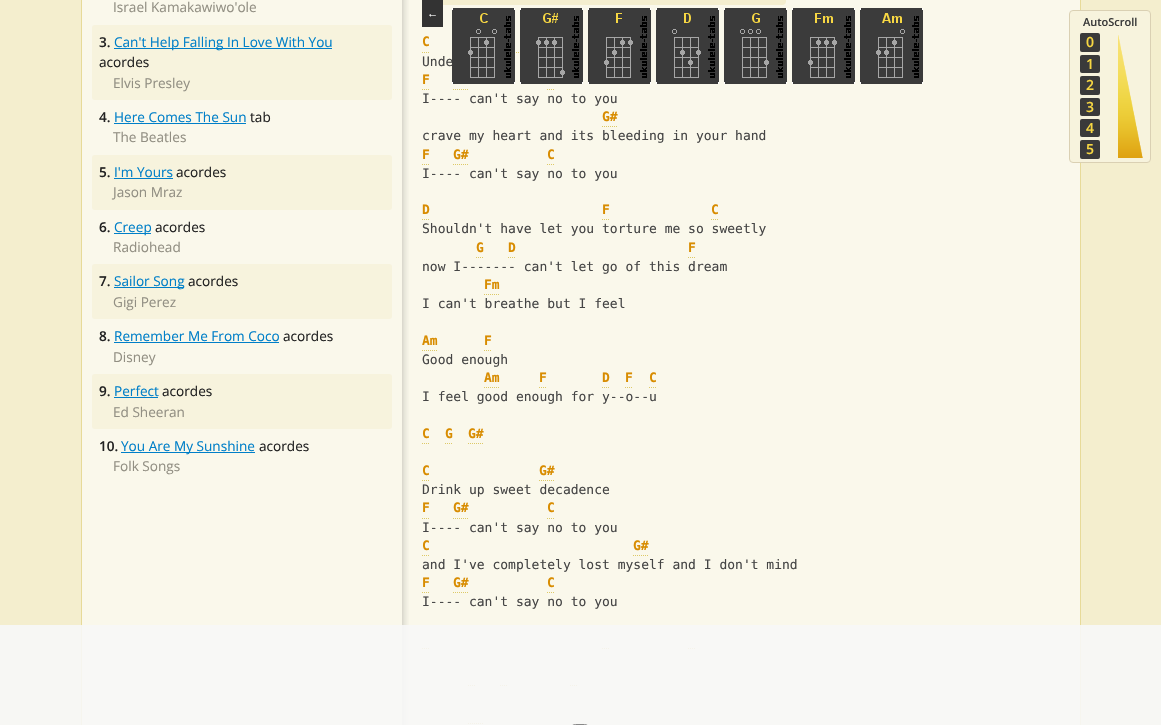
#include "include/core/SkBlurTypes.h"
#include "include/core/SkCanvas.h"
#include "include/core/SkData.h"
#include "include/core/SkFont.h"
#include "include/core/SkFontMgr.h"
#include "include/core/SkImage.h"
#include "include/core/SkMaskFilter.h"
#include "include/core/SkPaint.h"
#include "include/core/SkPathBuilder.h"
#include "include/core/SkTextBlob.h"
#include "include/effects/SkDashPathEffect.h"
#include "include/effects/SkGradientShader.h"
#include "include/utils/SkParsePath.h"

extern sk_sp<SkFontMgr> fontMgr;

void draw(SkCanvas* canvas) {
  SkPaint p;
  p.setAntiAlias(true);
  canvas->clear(SkColorSetRGB(244, 238, 206));
  p.setColor(SkColorSetRGB(250, 248, 235));
  canvas->drawRect(SkRect::MakeLTRB(81.5f, -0.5f, 1080.5f, 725.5f), p);
  p.setStyle(SkPaint::kStroke_Style);
  p.setStrokeWidth(1);
  p.setColor(SkColorSetRGB(231, 218, 153));
  canvas->drawRect(SkRect::MakeLTRB(81.5f, -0.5f, 1080.5f, 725.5f), p);
  canvas->save();
  canvas->clipRect(SkRect::MakeLTRB(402, 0, 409, 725));
  p.setStyle(SkPaint::kFill_Style);
  p.setColor(SkColorSetARGB(128, 51, 51, 51));
  p.setMaskFilter(SkMaskFilter::MakeBlur(kNormal_SkBlurStyle, 5));
  canvas->drawRect(SkRect::MakeLTRB(100, -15, 400, 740), p);
  p.setMaskFilter(nullptr);
  canvas->restore();
  p.setColor(SkColorSetRGB(247, 243, 221));
  canvas->drawRoundRect(SkRect::MakeLTRB(92, 25, 392, 100), 3, 3, p);
  p.setColor(SkColorSetRGB(0, 127, 200));
  canvas->drawRect(SkRect::MakeLTRB(114, 48, 332, 49), p);
  canvas->drawRect(SkRect::MakeLTRB(114, 123, 246, 124), p);
  p.setColor(SkColorSetRGB(247, 243, 221));
  canvas->drawRoundRect(SkRect::MakeLTRB(92, 155, 392, 210), 3, 3, p);
  p.setColor(SkColorSetRGB(0, 127, 200));
  canvas->drawRect(SkRect::MakeLTRB(114, 178, 173, 179), p);
  canvas->drawRect(SkRect::MakeLTRB(114, 233, 151, 234), p);
  p.setColor(SkColorSetRGB(247, 243, 221));
  canvas->drawRoundRect(SkRect::MakeLTRB(92, 264, 392, 319), 3, 3, p);
  p.setColor(SkColorSetRGB(0, 127, 200));
  canvas->drawRect(SkRect::MakeLTRB(114, 287, 184, 288), p);
  canvas->drawRect(SkRect::MakeLTRB(114, 342, 279, 343), p);
  p.setColor(SkColorSetRGB(247, 243, 221));
  canvas->drawRoundRect(SkRect::MakeLTRB(92, 374, 392, 429), 3, 3, p);
  p.setColor(SkColorSetRGB(0, 127, 200));
  canvas->drawRect(SkRect::MakeLTRB(114, 397, 158, 398), p);
  canvas->drawRect(SkRect::MakeLTRB(121, 452, 255, 453), p);
  p.setColor(SkColorSetRGB(244, 238, 207));
  canvas->drawRoundRect(SkRect::MakeLTRB(422, -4, 786, 5), 4, 4, p);
  p.setColor(SkColorSetRGB(51, 51, 51));
  canvas->drawRect(SkRect::MakeLTRB(422, 0, 443, 27), p);
  p.setStyle(SkPaint::kStroke_Style);
  p.setColor(SkColorSetRGB(221, 201, 103));
  p.setPathEffect(SkDashPathEffect::Make({{1, 1}}, 0));
  canvas->drawPath(SkPathBuilder().moveTo(508, 52.5f).lineTo(523, 52.5f).detach(), p);
  p.setPathEffect(nullptr);
  canvas->drawImageRect(SkImages::DeferredFromEncodedData(SkData::MakeFromFileName("images/2.png")), SkRect::MakeLTRB(520, 8, 583, 84), SkSamplingOptions());
  canvas->drawImageRect(SkImages::DeferredFromEncodedData(SkData::MakeFromFileName("images/3.png")), SkRect::MakeLTRB(588, 8, 651, 84), SkSamplingOptions());
  canvas->drawImageRect(SkImages::DeferredFromEncodedData(SkData::MakeFromFileName("images/4.png")), SkRect::MakeLTRB(656, 8, 719, 84), SkSamplingOptions());
  canvas->drawImageRect(SkImages::DeferredFromEncodedData(SkData::MakeFromFileName("images/5.png")), SkRect::MakeLTRB(724, 8, 787, 84), SkSamplingOptions());
  canvas->drawImageRect(SkImages::DeferredFromEncodedData(SkData::MakeFromFileName("images/6.png")), SkRect::MakeLTRB(792, 8, 855, 84), SkSamplingOptions());
  canvas->drawImageRect(SkImages::DeferredFromEncodedData(SkData::MakeFromFileName("images/7.png")), SkRect::MakeLTRB(860, 8, 923, 84), SkSamplingOptions());
  canvas->drawPath(SkPathBuilder().moveTo(422, 52.5f).lineTo(423, 52.5f).moveTo(424, 52.5f).lineTo(425, 52.5f).moveTo(426, 52.5f).lineTo(427, 52.5f).moveTo(428, 52.5f).lineTo(429, 52.5f).detach(), p);
  canvas->drawPath(SkPathBuilder().moveTo(422, 89.5f).lineTo(423, 89.5f).moveTo(424, 89.5f).lineTo(425, 89.5f).moveTo(426, 89.5f).lineTo(427, 89.5f).moveTo(428, 89.5f).lineTo(429, 89.5f).detach(), p);
  p.setPathEffect(SkDashPathEffect::Make({{1, 1}}, 0));
  canvas->drawPath(SkPathBuilder().moveTo(453, 89.5f).lineTo(468, 89.5f).detach(), p);
  p.setPathEffect(nullptr);
  p.setPathEffect(SkDashPathEffect::Make({{1, 1}}, 0));
  canvas->drawPath(SkPathBuilder().moveTo(547, 89.5f).lineTo(555, 89.5f).detach(), p);
  p.setPathEffect(nullptr);
  p.setPathEffect(SkDashPathEffect::Make({{1, 1}}, 0));
  canvas->drawPath(SkPathBuilder().moveTo(602, 126.5f).lineTo(617, 126.5f).detach(), p);
  p.setPathEffect(nullptr);
  canvas->drawPath(SkPathBuilder().moveTo(422, 164.5f).lineTo(423, 164.5f).moveTo(424, 164.5f).lineTo(425, 164.5f).moveTo(426, 164.5f).lineTo(427, 164.5f).moveTo(428, 164.5f).lineTo(429, 164.5f).detach(), p);
  p.setPathEffect(SkDashPathEffect::Make({{1, 1}}, 0));
  canvas->drawPath(SkPathBuilder().moveTo(453, 164.5f).lineTo(468, 164.5f).detach(), p);
  p.setPathEffect(nullptr);
  p.setPathEffect(SkDashPathEffect::Make({{1, 1}}, 0));
  canvas->drawPath(SkPathBuilder().moveTo(547, 164.5f).lineTo(555, 164.5f).detach(), p);
  p.setPathEffect(nullptr);
  canvas->drawPath(SkPathBuilder().moveTo(422, 219.5f).lineTo(423, 219.5f).moveTo(424, 219.5f).lineTo(425, 219.5f).moveTo(426, 219.5f).lineTo(427, 219.5f).moveTo(428, 219.5f).lineTo(429, 219.5f).detach(), p);
  canvas->drawPath(SkPathBuilder().moveTo(602, 219.5f).lineTo(603, 219.5f).moveTo(604, 219.5f).lineTo(605, 219.5f).moveTo(606, 219.5f).lineTo(607, 219.5f).moveTo(608, 219.5f).lineTo(609, 219.5f).detach(), p);
  p.setPathEffect(SkDashPathEffect::Make({{1, 1}}, 0));
  canvas->drawPath(SkPathBuilder().moveTo(711, 219.5f).lineTo(719, 219.5f).detach(), p);
  p.setPathEffect(nullptr);
  p.setPathEffect(SkDashPathEffect::Make({{1, 1}}, 0));
  canvas->drawPath(SkPathBuilder().moveTo(476, 257.5f).lineTo(484, 257.5f).detach(), p);
  p.setPathEffect(nullptr);
  canvas->drawPath(SkPathBuilder().moveTo(508, 257.5f).lineTo(509, 257.5f).moveTo(510, 257.5f).lineTo(511, 257.5f).moveTo(512, 257.5f).lineTo(513, 257.5f).moveTo(514, 257.5f).lineTo(515, 257.5f).detach(), p);
  canvas->drawPath(SkPathBuilder().moveTo(688, 257.5f).lineTo(689, 257.5f).moveTo(690, 257.5f).lineTo(691, 257.5f).moveTo(692, 257.5f).lineTo(693, 257.5f).moveTo(694, 257.5f).lineTo(695, 257.5f).detach(), p);
  p.setPathEffect(SkDashPathEffect::Make({{1, 1}}, 0));
  canvas->drawPath(SkPathBuilder().moveTo(484, 294.5f).lineTo(500, 294.5f).detach(), p);
  p.setPathEffect(nullptr);
  p.setPathEffect(SkDashPathEffect::Make({{1, 1}}, 0));
  canvas->drawPath(SkPathBuilder().moveTo(422, 350.5f).lineTo(437, 350.5f).detach(), p);
  p.setPathEffect(nullptr);
  p.setPathEffect(SkDashPathEffect::Make({{1, 1}}, 0));
  canvas->drawPath(SkPathBuilder().moveTo(484, 350.5f).lineTo(492, 350.5f).detach(), p);
  p.setPathEffect(nullptr);
  p.setPathEffect(SkDashPathEffect::Make({{1, 1}}, 0));
  canvas->drawPath(SkPathBuilder().moveTo(484, 387.5f).lineTo(500, 387.5f).detach(), p);
  p.setPathEffect(nullptr);
  p.setPathEffect(SkDashPathEffect::Make({{1, 1}}, 0));
  canvas->drawPath(SkPathBuilder().moveTo(539, 387.5f).lineTo(547, 387.5f).detach(), p);
  p.setPathEffect(nullptr);
  canvas->drawPath(SkPathBuilder().moveTo(602, 387.5f).lineTo(603, 387.5f).moveTo(604, 387.5f).lineTo(605, 387.5f).moveTo(606, 387.5f).lineTo(607, 387.5f).moveTo(608, 387.5f).lineTo(609, 387.5f).detach(), p);
  p.setPathEffect(SkDashPathEffect::Make({{1, 1}}, 0));
  canvas->drawPath(SkPathBuilder().moveTo(625, 387.5f).lineTo(633, 387.5f).detach(), p);
  p.setPathEffect(nullptr);
  canvas->drawPath(SkPathBuilder().moveTo(649, 387.5f).lineTo(650, 387.5f).moveTo(651, 387.5f).lineTo(652, 387.5f).moveTo(653, 387.5f).lineTo(654, 387.5f).moveTo(655, 387.5f).lineTo(656, 387.5f).detach(), p);
  canvas->drawPath(SkPathBuilder().moveTo(422, 443.5f).lineTo(423, 443.5f).moveTo(424, 443.5f).lineTo(425, 443.5f).moveTo(426, 443.5f).lineTo(427, 443.5f).moveTo(428, 443.5f).lineTo(429, 443.5f).detach(), p);
  p.setPathEffect(SkDashPathEffect::Make({{1, 1}}, 0));
  canvas->drawPath(SkPathBuilder().moveTo(445, 443.5f).lineTo(453, 443.5f).detach(), p);
  p.setPathEffect(nullptr);
  p.setPathEffect(SkDashPathEffect::Make({{1, 1}}, 0));
  canvas->drawPath(SkPathBuilder().moveTo(468, 443.5f).lineTo(484, 443.5f).detach(), p);
  p.setPathEffect(nullptr);
  canvas->drawPath(SkPathBuilder().moveTo(422, 480.5f).lineTo(423, 480.5f).moveTo(424, 480.5f).lineTo(425, 480.5f).moveTo(426, 480.5f).lineTo(427, 480.5f).moveTo(428, 480.5f).lineTo(429, 480.5f).detach(), p);
  p.setPathEffect(SkDashPathEffect::Make({{1, 1}}, 0));
  canvas->drawPath(SkPathBuilder().moveTo(539, 480.5f).lineTo(555, 480.5f).detach(), p);
  p.setPathEffect(nullptr);
  canvas->drawPath(SkPathBuilder().moveTo(422, 518.5f).lineTo(423, 518.5f).moveTo(424, 518.5f).lineTo(425, 518.5f).moveTo(426, 518.5f).lineTo(427, 518.5f).moveTo(428, 518.5f).lineTo(429, 518.5f).detach(), p);
  p.setPathEffect(SkDashPathEffect::Make({{1, 1}}, 0));
  canvas->drawPath(SkPathBuilder().moveTo(453, 518.5f).lineTo(468, 518.5f).detach(), p);
  p.setPathEffect(nullptr);
  p.setPathEffect(SkDashPathEffect::Make({{1, 1}}, 0));
  canvas->drawPath(SkPathBuilder().moveTo(547, 518.5f).lineTo(555, 518.5f).detach(), p);
  p.setPathEffect(nullptr);
  canvas->drawPath(SkPathBuilder().moveTo(422, 555.5f).lineTo(423, 555.5f).moveTo(424, 555.5f).lineTo(425, 555.5f).moveTo(426, 555.5f).lineTo(427, 555.5f).moveTo(428, 555.5f).lineTo(429, 555.5f).detach(), p);
  p.setPathEffect(SkDashPathEffect::Make({{1, 1}}, 0));
  canvas->drawPath(SkPathBuilder().moveTo(633, 555.5f).lineTo(648, 555.5f).detach(), p);
  p.setPathEffect(nullptr);
  canvas->drawPath(SkPathBuilder().moveTo(422, 592.5f).lineTo(423, 592.5f).moveTo(424, 592.5f).lineTo(425, 592.5f).moveTo(426, 592.5f).lineTo(427, 592.5f).moveTo(428, 592.5f).lineTo(429, 592.5f).detach(), p);
  p.setPathEffect(SkDashPathEffect::Make({{1, 1}}, 0));
  canvas->drawPath(SkPathBuilder().moveTo(453, 592.5f).lineTo(468, 592.5f).detach(), p);
  p.setPathEffect(nullptr);
  p.setPathEffect(SkDashPathEffect::Make({{1, 1}}, 0));
  canvas->drawPath(SkPathBuilder().moveTo(547, 592.5f).lineTo(555, 592.5f).detach(), p);
  p.setPathEffect(nullptr);
  canvas->drawPath(SkPathBuilder().moveTo(422, 648.5f).lineTo(423, 648.5f).moveTo(424, 648.5f).lineTo(425, 648.5f).moveTo(426, 648.5f).lineTo(427, 648.5f).moveTo(428, 648.5f).lineTo(429, 648.5f).detach(), p);
  canvas->drawPath(SkPathBuilder().moveTo(602, 648.5f).lineTo(603, 648.5f).moveTo(604, 648.5f).lineTo(605, 648.5f).moveTo(606, 648.5f).lineTo(607, 648.5f).moveTo(608, 648.5f).lineTo(609, 648.5f).detach(), p);
  canvas->drawPath(SkPathBuilder().moveTo(688, 648.5f).lineTo(689, 648.5f).moveTo(690, 648.5f).lineTo(691, 648.5f).moveTo(692, 648.5f).lineTo(693, 648.5f).moveTo(694, 648.5f).lineTo(695, 648.5f).detach(), p);
  p.setPathEffect(SkDashPathEffect::Make({{1, 1}}, 0));
  canvas->drawPath(SkPathBuilder().moveTo(468, 685.5f).lineTo(476, 685.5f).moveTo(500, 685.5f).lineTo(508, 685.5f).detach(), p);
  p.setPathEffect(nullptr);
  p.setPathEffect(SkDashPathEffect::Make({{1, 1}}, 0));
  canvas->drawPath(SkPathBuilder().moveTo(570, 685.5f).lineTo(578, 685.5f).detach(), p);
  p.setPathEffect(nullptr);
  p.setPathEffect(SkDashPathEffect::Make({{1, 1}}, 0));
  canvas->drawPath(SkPathBuilder().moveTo(468, 723.5f).lineTo(484, 723.5f).detach(), p);
  p.setPathEffect(nullptr);
  p.setStyle(SkPaint::kFill_Style);
  p.setColor(SkColorSetRGB(247, 243, 221));
  canvas->drawRoundRect(SkRect::MakeLTRB(1069.5f, 10.5f, 1150.5f, 162.5f), 3.5f, 3.5f, p);
  p.setStyle(SkPaint::kStroke_Style);
  p.setColor(SkColorSetRGB(218, 208, 179));
  canvas->drawRoundRect(SkRect::MakeLTRB(1069.5f, 10.5f, 1150.5f, 162.5f), 3.5f, 3.5f, p);
  p.setStyle(SkPaint::kFill_Style);
  p.setColor(SkColorSetRGB(58, 58, 58));
  canvas->drawRoundRect(SkRect::MakeLTRB(1080, 33, 1100, 52), 2, 2, p);
  canvas->drawRoundRect(SkRect::MakeLTRB(1080, 55, 1100, 73), 2, 2, p);
  canvas->drawRoundRect(SkRect::MakeLTRB(1080, 76, 1100, 95), 2, 2, p);
  canvas->drawRoundRect(SkRect::MakeLTRB(1080, 98, 1100, 116), 2, 2, p);
  canvas->drawRoundRect(SkRect::MakeLTRB(1080, 119, 1100, 137), 2, 2, p);
  canvas->drawRoundRect(SkRect::MakeLTRB(1080, 140, 1100, 159), 2, 2, p);
  canvas->drawImageRect(SkImages::DeferredFromEncodedData(SkData::MakeFromFileName("images/8.png")), SkRect::MakeLTRB(1118, 35, 1143, 158), SkSamplingOptions());
  p.setColor(SkColorSetARGB(230, 247, 247, 247));
  canvas->drawRect(SkRect::MakeLTRB(0, 625, 1161, 725), p);
  p.setStyle(SkPaint::kStroke_Style);
  p.setColor(SkColorSetRGB(136, 136, 136));
  canvas->drawRoundRect(SkRect::MakeLTRB(569.5f, 724.5f, 590.5f, 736.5f), 10.5f, 10.5f, p);
  SkFont font1(fontMgr->matchFamilyStyle("Open Sans", SkFontStyle::Normal()), 13.6f);
  font1.setSubpixel(true);
  p.setStyle(SkPaint::kFill_Style);
  p.setColor(SkColorSetRGB(146, 143, 131));
  canvas->drawString("Israel Kamakawiwo'ole", 113, 12, font1, p);
  SkFont font2(fontMgr->matchFamilyStyle("Open Sans", SkFontStyle(600, SkFontStyle::kNormal_Width, SkFontStyle::kUpright_Slant)), 13.6f);
  font2.setSubpixel(true);
  p.setColor(SkColorSetRGB(34, 34, 34));
  canvas->drawString("3.", 99, 47, font2, p);
  p.setColor(SkColorSetRGB(0, 127, 200));
  canvas->drawString("Can't Help Falling In Love With You", 114, 47, font1, p);
  p.setColor(SkColorSetRGB(34, 34, 34));
  canvas->drawString("acordes", 99, 67, font1, p);
  p.setColor(SkColorSetRGB(146, 143, 131));
  canvas->drawString("Elvis Presley", 113, 88, font1, p);
  p.setColor(SkColorSetRGB(34, 34, 34));
  canvas->drawString("4.", 99, 122, font2, p);
  p.setColor(SkColorSetRGB(0, 127, 200));
  canvas->drawString("Here Comes The Sun", 114, 122, font1, p);
  p.setColor(SkColorSetRGB(34, 34, 34));
  canvas->drawString("tab", 250, 122, font1, p);
  p.setColor(SkColorSetRGB(146, 143, 131));
  canvas->drawString("The Beatles", 113, 142, font1, p);
  p.setColor(SkColorSetRGB(34, 34, 34));
  canvas->drawString("5.", 99, 177, font2, p);
  p.setColor(SkColorSetRGB(0, 127, 200));
  canvas->drawString("I'm Yours", 114, 177, font1, p);
  p.setColor(SkColorSetRGB(34, 34, 34));
  canvas->drawString("acordes", 176, 177, font1, p);
  p.setColor(SkColorSetRGB(146, 143, 131));
  canvas->drawString("Jason Mraz", 113, 197, font1, p);
  p.setColor(SkColorSetRGB(34, 34, 34));
  canvas->drawString("6.", 99, 232, font2, p);
  p.setColor(SkColorSetRGB(0, 127, 200));
  canvas->drawString("Creep", 114, 232, font1, p);
  p.setColor(SkColorSetRGB(34, 34, 34));
  canvas->drawString("acordes", 155, 232, font1, p);
  p.setColor(SkColorSetRGB(146, 143, 131));
  canvas->drawString("Radiohead", 113, 252, font1, p);
  p.setColor(SkColorSetRGB(34, 34, 34));
  canvas->drawString("7.", 99, 286, font2, p);
  p.setColor(SkColorSetRGB(0, 127, 200));
  canvas->drawString("Sailor Song", 114, 286, font1, p);
  p.setColor(SkColorSetRGB(34, 34, 34));
  canvas->drawString("acordes", 188, 286, font1, p);
  p.setColor(SkColorSetRGB(146, 143, 131));
  canvas->drawString("Gigi Perez", 113, 307, font1, p);
  p.setColor(SkColorSetRGB(34, 34, 34));
  canvas->drawString("8.", 99, 341, font2, p);
  p.setColor(SkColorSetRGB(0, 127, 200));
  canvas->drawString("Remember Me From Coco", 114, 341, font1, p);
  p.setColor(SkColorSetRGB(34, 34, 34));
  canvas->drawString("acordes", 283, 341, font1, p);
  p.setColor(SkColorSetRGB(146, 143, 131));
  canvas->drawString("Disney", 113, 362, font1, p);
  p.setColor(SkColorSetRGB(34, 34, 34));
  canvas->drawString("9.", 99, 396, font2, p);
  p.setColor(SkColorSetRGB(0, 127, 200));
  canvas->drawString("Perfect", 114, 396, font1, p);
  p.setColor(SkColorSetRGB(34, 34, 34));
  canvas->drawString("acordes", 162, 396, font1, p);
  p.setColor(SkColorSetRGB(146, 143, 131));
  canvas->drawString("Ed Sheeran", 113, 417, font1, p);
  p.setColor(SkColorSetRGB(34, 34, 34));
  canvas->drawString("10.", 99, 451, font2, p);
  p.setColor(SkColorSetRGB(0, 127, 200));
  canvas->drawString("You Are My Sunshine", 121, 451, font1, p);
  p.setColor(SkColorSetRGB(34, 34, 34));
  canvas->drawString("acordes", 259, 451, font1, p);
  p.setColor(SkColorSetRGB(146, 143, 131));
  canvas->drawString("Folk Songs", 113, 471, font1, p);
  SkFont font3(fontMgr->matchFamilyStyle("Liberation Sans", SkFontStyle::Bold()), 11);
  font3.setSubpixel(true);
  p.setColor(SK_ColorWHITE);
  canvas->drawString("←", 427, 17, font3, p);
  SkFont font4(fontMgr->matchFamilyStyle("DejaVu Sans Mono", SkFontStyle::Bold()), 13);
  font4.setSubpixel(true);
  p.setColor(SkColorSetRGB(216, 140, 0));
  canvas->drawString("C", 422, 46, font4, p);
  SkFont font5(fontMgr->matchFamilyStyle("DejaVu Sans Mono", SkFontStyle::Normal()), 13);
  font5.setSubpixel(true);
  p.setColor(SkColorSetRGB(69, 69, 69));
  canvas->drawString("Unde", 422, 66, font5, p);
  canvas->drawImageRect(SkImages::DeferredFromEncodedData(SkData::MakeFromFileName("images/1.png")), SkRect::MakeLTRB(452, 8, 515, 84), SkSamplingOptions());
  p.setColor(SkColorSetRGB(216, 140, 0));
  canvas->drawString("F", 422, 84, font4, p);
  p.setColor(SkColorSetRGB(69, 69, 69));
  canvas->drawString("I---- can't say no to you", 422, 103, font5, p);
  p.setColor(SkColorSetRGB(216, 140, 0));
  canvas->drawString("G#", 602, 121, font4, p);
  p.setColor(SkColorSetRGB(69, 69, 69));
  canvas->drawString("crave my heart and its bleeding in your hand", 422, 140, font5, p);
  p.setColor(SkColorSetRGB(216, 140, 0));
  canvas->drawString("F", 422, 159, font4, p);
  canvas->drawString("G#", 453, 159, font4, p);
  canvas->drawString("C", 547, 159, font4, p);
  p.setColor(SkColorSetRGB(69, 69, 69));
  canvas->drawString("I---- can't say no to you", 422, 178, font5, p);
  p.setColor(SkColorSetRGB(216, 140, 0));
  canvas->drawString("D", 422, 214, font4, p);
  canvas->drawString("F", 602, 214, font4, p);
  canvas->drawString("C", 711, 214, font4, p);
  p.setColor(SkColorSetRGB(69, 69, 69));
  canvas->drawString("Shouldn't have let you torture me so sweetly", 422, 233, font5, p);
  p.setColor(SkColorSetRGB(216, 140, 0));
  canvas->drawString("G", 476, 252, font4, p);
  canvas->drawString("D", 508, 252, font4, p);
  canvas->drawString("F", 688, 252, font4, p);
  p.setColor(SkColorSetRGB(69, 69, 69));
  canvas->drawString("now I------- can't let go of this dream", 422, 271, font5, p);
  p.setColor(SkColorSetRGB(216, 140, 0));
  canvas->drawString("Fm", 484, 289, font4, p);
  p.setColor(SkColorSetRGB(69, 69, 69));
  canvas->drawString("I can't breathe but I feel", 422, 308, font5, p);
  p.setColor(SkColorSetRGB(216, 140, 0));
  canvas->drawString("Am", 422, 345, font4, p);
  canvas->drawString("F", 484, 345, font4, p);
  p.setColor(SkColorSetRGB(69, 69, 69));
  canvas->drawString("Good enough", 422, 364, font5, p);
  p.setColor(SkColorSetRGB(216, 140, 0));
  canvas->drawString("Am", 484, 382, font4, p);
  canvas->drawString("F", 539, 382, font4, p);
  canvas->drawString("D", 602, 382, font4, p);
  canvas->drawString("F", 625, 382, font4, p);
  canvas->drawString("C", 649, 382, font4, p);
  p.setColor(SkColorSetRGB(69, 69, 69));
  canvas->drawString("I feel good enough for y--o--u", 422, 401, font5, p);
  p.setColor(SkColorSetRGB(216, 140, 0));
  canvas->drawString("C", 422, 438, font4, p);
  canvas->drawString("G", 445, 438, font4, p);
  canvas->drawString("G#", 468, 438, font4, p);
  canvas->drawString("C", 422, 475, font4, p);
  canvas->drawString("G#", 539, 475, font4, p);
  p.setColor(SkColorSetRGB(69, 69, 69));
  canvas->drawString("Drink up sweet decadence", 422, 494, font5, p);
  p.setColor(SkColorSetRGB(216, 140, 0));
  canvas->drawString("F", 422, 512, font4, p);
  canvas->drawString("G#", 453, 512, font4, p);
  canvas->drawString("C", 547, 512, font4, p);
  p.setColor(SkColorSetRGB(69, 69, 69));
  canvas->drawString("I---- can't say no to you", 422, 532, font5, p);
  p.setColor(SkColorSetRGB(216, 140, 0));
  canvas->drawString("C", 422, 550, font4, p);
  canvas->drawString("G#", 633, 550, font4, p);
  p.setColor(SkColorSetRGB(69, 69, 69));
  canvas->drawString("and I've completely lost myself and I don't mind", 422, 569, font5, p);
  p.setColor(SkColorSetRGB(216, 140, 0));
  canvas->drawString("F", 422, 587, font4, p);
  canvas->drawString("G#", 453, 587, font4, p);
  canvas->drawString("C", 547, 587, font4, p);
  p.setColor(SkColorSetRGB(69, 69, 69));
  canvas->drawString("I---- can't say no to you", 422, 606, font5, p);
  SkFont font6(fontMgr->matchFamilyStyle("Open Sans", SkFontStyle(600, SkFontStyle::kNormal_Width, SkFontStyle::kUpright_Slant)), 11);
  font6.setSubpixel(true);
  p.setColor(SkColorSetRGB(58, 58, 58));
  canvas->drawString("AutoScroll", 1083, 26, font6, p);
  SkFont font7(fontMgr->matchFamilyStyle("Open Sans", SkFontStyle(600, SkFontStyle::kNormal_Width, SkFontStyle::kUpright_Slant)), 14);
  font7.setSubpixel(true);
  p.setColor(SkColorSetRGB(247, 215, 66));
  canvas->drawString("0", 1086, 47, font7, p);
  canvas->drawString("1", 1086, 69, font7, p);
  canvas->drawString("2", 1086, 90, font7, p);
  canvas->drawString("3", 1086, 112, font7, p);
  canvas->drawString("4", 1086, 133, font7, p);
  canvas->drawString("5", 1086, 154, font7, p);
}
